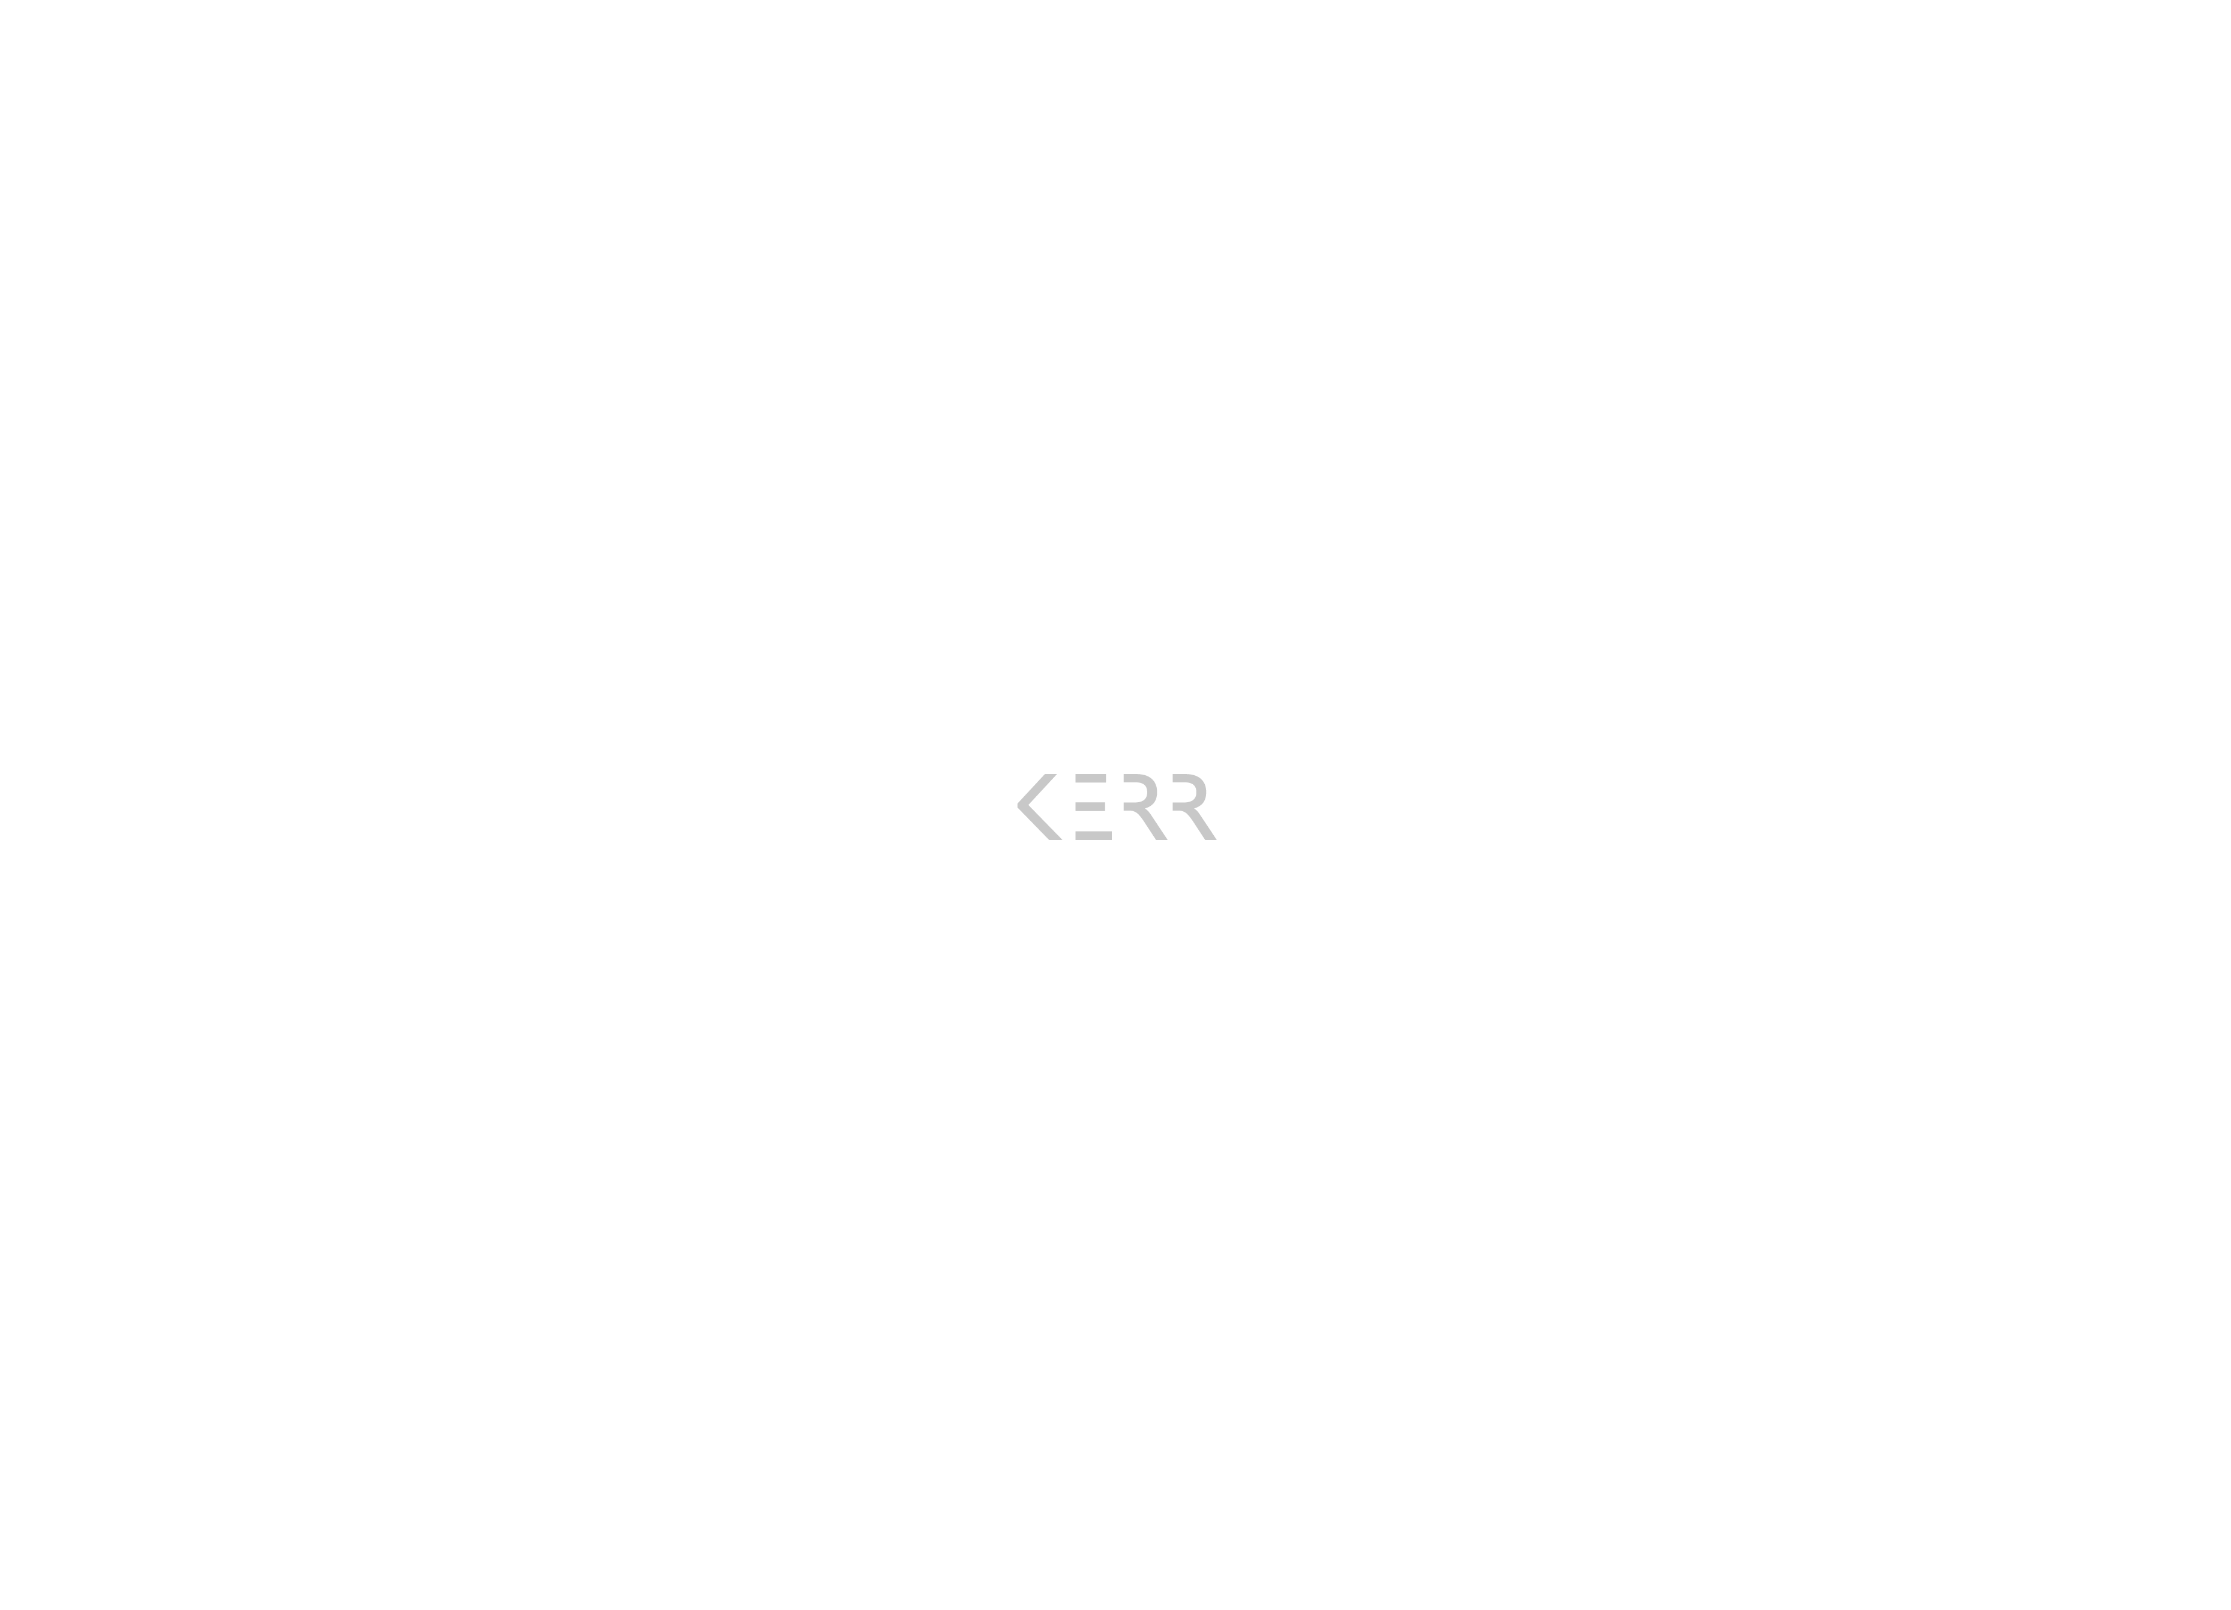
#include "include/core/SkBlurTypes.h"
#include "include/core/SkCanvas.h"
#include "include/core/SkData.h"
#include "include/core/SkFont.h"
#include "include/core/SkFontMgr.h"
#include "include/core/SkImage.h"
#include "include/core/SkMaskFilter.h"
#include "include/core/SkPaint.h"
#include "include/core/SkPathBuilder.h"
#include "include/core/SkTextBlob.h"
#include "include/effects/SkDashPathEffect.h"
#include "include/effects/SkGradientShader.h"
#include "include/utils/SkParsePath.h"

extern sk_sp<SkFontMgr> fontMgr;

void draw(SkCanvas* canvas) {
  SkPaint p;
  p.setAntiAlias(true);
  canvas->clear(SK_ColorWHITE);
  canvas->drawImageRect(SkImages::DeferredFromEncodedData(SkData::MakeFromFileName("images/1.png")), SkRect::MakeLTRB(1017, 774, 1217, 840), SkSamplingOptions());
}
